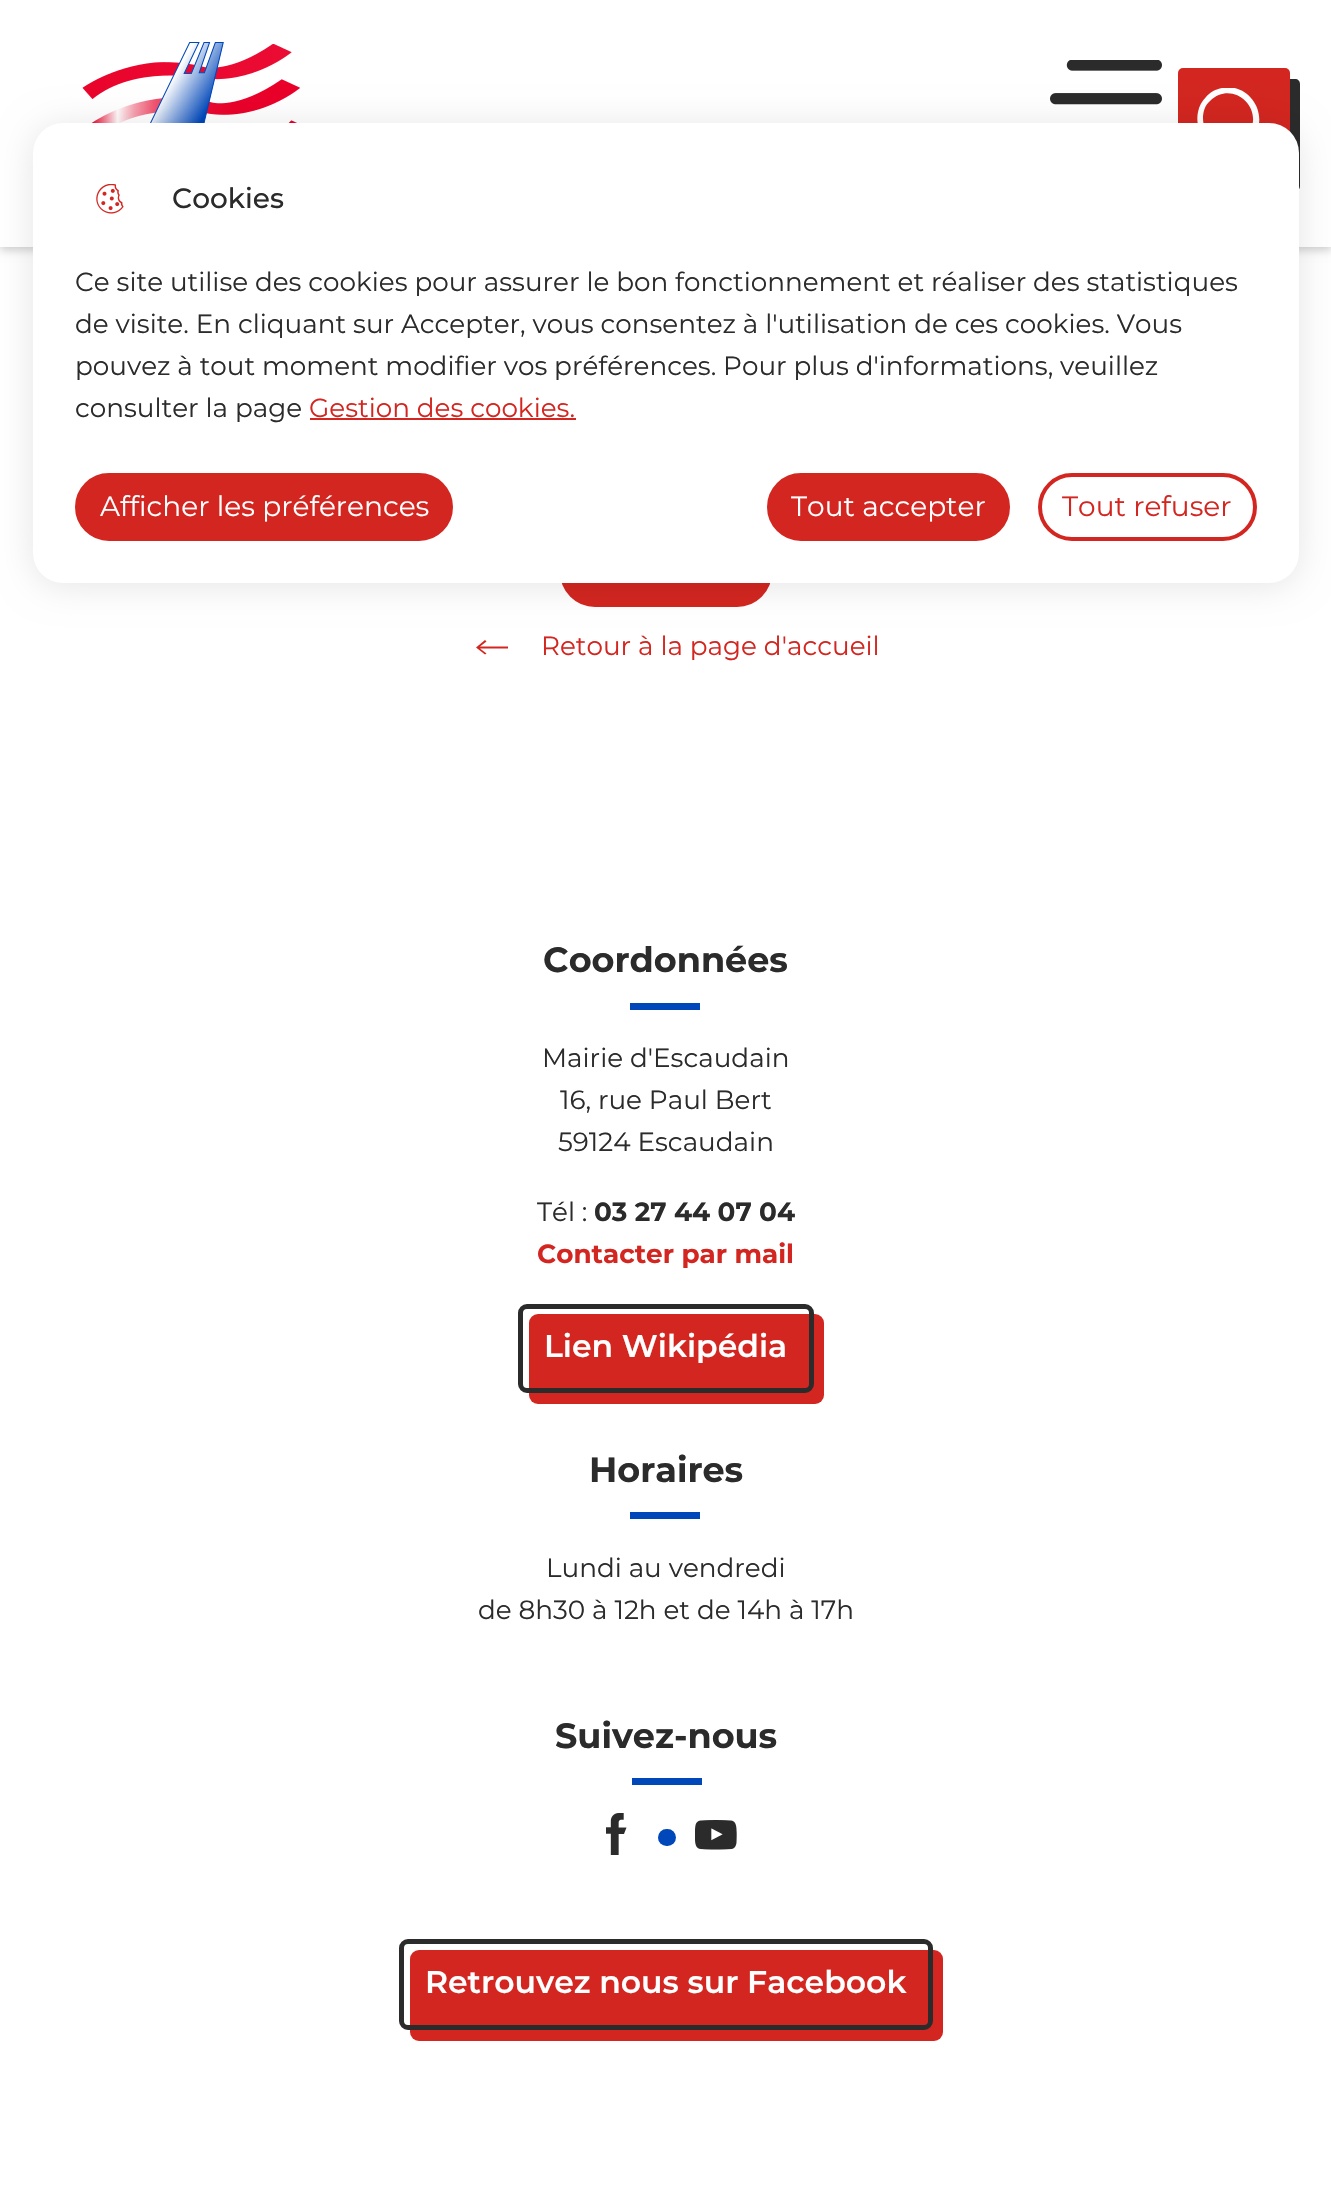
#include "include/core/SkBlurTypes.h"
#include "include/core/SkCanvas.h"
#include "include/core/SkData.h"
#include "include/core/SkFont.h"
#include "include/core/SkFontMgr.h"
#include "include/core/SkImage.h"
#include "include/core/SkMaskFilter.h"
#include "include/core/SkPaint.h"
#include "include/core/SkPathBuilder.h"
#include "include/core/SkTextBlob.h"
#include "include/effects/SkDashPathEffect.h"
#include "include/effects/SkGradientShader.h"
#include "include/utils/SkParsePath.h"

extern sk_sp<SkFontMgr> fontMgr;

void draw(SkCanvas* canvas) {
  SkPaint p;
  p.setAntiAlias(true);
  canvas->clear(SK_ColorWHITE);
  p.setColor(SkColorSetARGB(51, 0, 0, 0));
  p.setMaskFilter(SkMaskFilter::MakeBlur(kNormal_SkBlurStyle, 4.5f));
  canvas->drawRect(SkRect::MakeLTRB(0, 4, 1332, 250), p);
  p.setMaskFilter(nullptr);
  p.setColor(SK_ColorWHITE);
  canvas->drawRect(SkRect::MakeLTRB(0, 0, 1331, 247), p);
  canvas->drawImageRect(SkImages::DeferredFromEncodedData(SkData::MakeFromFileName("images/2.png")), SkRect::MakeLTRB(82, 42, 300, 123), SkSamplingOptions());
  canvas->drawImageRect(SkImages::DeferredFromEncodedData(SkData::MakeFromFileName("images/3.png")), SkRect::MakeLTRB(1050, 60, 1162, 105), SkSamplingOptions());
  p.setColor(SkColorSetRGB(43, 43, 43));
  canvas->drawPath(SkPathBuilder().moveTo(1188, 180).lineTo(1188, 186).cubicTo(1188, 189, 1190, 191, 1193, 191).lineTo(1295, 191).cubicTo(1298, 191, 1300, 189, 1300, 186).lineTo(1300, 84).cubicTo(1300, 81, 1298, 79, 1295, 79).lineTo(1290, 79).lineTo(1290, 175).cubicTo(1290, 178, 1287, 180, 1284, 180).close().detach(), p);
  p.setColor(SkColorSetRGB(211, 38, 32));
  canvas->drawRoundRect(SkRect::MakeLTRB(1178, 68, 1290, 180), 5, 5, p);
  canvas->save();
  canvas->clipRect(SkRect::MakeLTRB(1197, 88, 1271, 161));
  p.setColor(SK_ColorWHITE);
  canvas->drawPath(SkPathBuilder(SkPathFillType::kEvenOdd).moveTo(1269, 156).lineTo(1252, 138).cubicTo(1271, 117, 1250, 82, 1222, 88).cubicTo(1216, 89, 1210, 92, 1206, 97).cubicTo(1202, 101, 1199, 106, 1198, 112).cubicTo(1192, 141, 1227, 161, 1248, 142).lineTo(1267, 161).cubicTo(1269, 162, 1272, 158, 1269, 156).close().moveTo(1203, 118).cubicTo(1203, 112, 1205, 105, 1210, 101).cubicTo(1234, 78, 1268, 112, 1246, 136).lineTo(1246, 137).cubicTo(1230, 151, 1203, 142, 1203, 118).close().detach(), p);
  canvas->restore();
  p.setColor(SkColorSetRGB(211, 38, 32));
  canvas->drawRoundRect(SkRect::MakeLTRB(562, 539, 770, 605), 33, 33, p);
  p.setStyle(SkPaint::kStroke_Style);
  p.setStrokeWidth(4);
  canvas->drawRoundRect(SkRect::MakeLTRB(562, 539, 770, 605), 33, 33, p);
  p.setStyle(SkPaint::kFill_Style);
  p.setColor(SkColorSetARGB(26, 0, 0, 0));
  p.setMaskFilter(SkMaskFilter::MakeBlur(kNormal_SkBlurStyle, 17.5f));
  canvas->drawRoundRect(SkRect::MakeLTRB(33, 126, 1299, 586), 30, 30, p);
  p.setMaskFilter(nullptr);
  p.setColor(SK_ColorWHITE);
  canvas->drawRoundRect(SkRect::MakeLTRB(33, 123, 1299, 583), 30, 30, p);
  canvas->drawImageRect(SkImages::DeferredFromEncodedData(SkData::MakeFromFileName("images/1.png")), SkRect::MakeLTRB(96, 184, 124, 214), SkSamplingOptions());
  p.setColor(SkColorSetRGB(211, 38, 32));
  canvas->drawRect(SkRect::MakeLTRB(310, 418, 576, 420), p);
  canvas->drawRoundRect(SkRect::MakeLTRB(77, 475, 451, 539), 32, 32, p);
  p.setStyle(SkPaint::kStroke_Style);
  canvas->drawRoundRect(SkRect::MakeLTRB(77, 475, 451, 539), 32, 32, p);
  p.setStyle(SkPaint::kFill_Style);
  canvas->drawRoundRect(SkRect::MakeLTRB(769, 475, 1008, 539), 32, 32, p);
  p.setStyle(SkPaint::kStroke_Style);
  canvas->drawRoundRect(SkRect::MakeLTRB(769, 475, 1008, 539), 32, 32, p);
  canvas->drawRoundRect(SkRect::MakeLTRB(1040, 475, 1255, 539), 32, 32, p);
  canvas->save();
  canvas->clipRect(SkRect::MakeLTRB(476, 639, 508, 655));
  p.setStyle(SkPaint::kFill_Style);
  canvas->drawPath(SkPathBuilder(SkPathFillType::kEvenOdd).moveTo(508.5f, 646.5f).lineTo(480, 646.5f).lineTo(486.5f, 641.5f).lineTo(485, 640).lineTo(476, 647.5f).lineTo(485, 654.5f).lineTo(486.5f, 653.5f).lineTo(480, 648.5f).lineTo(508.5f, 648.5f).close().detach(), p);
  canvas->restore();
  p.setColor(SkColorSetRGB(0, 71, 186));
  canvas->drawRect(SkRect::MakeLTRB(630, 1003, 700, 1010), p);
  p.setColor(SkColorSetRGB(211, 38, 32));
  canvas->drawRoundRect(SkRect::MakeLTRB(529, 1314, 824, 1404), 9, 9, p);
  p.setStyle(SkPaint::kStroke_Style);
  p.setStrokeWidth(5);
  p.setColor(SkColorSetRGB(43, 43, 43));
  canvas->drawRoundRect(SkRect::MakeLTRB(520.5f, 1306.5f, 811.5f, 1390.5f), 6.5f, 6.5f, p);
  p.setStyle(SkPaint::kFill_Style);
  p.setColor(SkColorSetRGB(0, 71, 186));
  canvas->drawRect(SkRect::MakeLTRB(630, 1512, 700, 1519), p);
  canvas->drawRect(SkRect::MakeLTRB(632, 1778, 702, 1785), p);
  canvas->drawImageRect(SkImages::DeferredFromEncodedData(SkData::MakeFromFileName("images/4.png")), SkRect::MakeLTRB(606, 1813, 627, 1855), SkSamplingOptions());
  canvas->drawRoundRect(SkRect::MakeLTRB(658, 1829, 676, 1846), 8.5f, 8.5f, p);
  canvas->drawImageRect(SkImages::DeferredFromEncodedData(SkData::MakeFromFileName("images/5.png")), SkRect::MakeLTRB(695, 1820, 737, 1850), SkSamplingOptions());
  p.setColor(SkColorSetRGB(211, 38, 32));
  canvas->drawRoundRect(SkRect::MakeLTRB(410, 1950, 943, 2041), 9, 9, p);
  p.setStyle(SkPaint::kStroke_Style);
  p.setColor(SkColorSetRGB(43, 43, 43));
  canvas->drawRoundRect(SkRect::MakeLTRB(401.5f, 1941.5f, 930.5f, 2027.5f), 6.5f, 6.5f, p);
  SkFont font1(fontMgr->matchFamilyStyle("Montserrat", SkFontStyle(500, SkFontStyle::kNormal_Width, SkFontStyle::kUpright_Slant)), 28);
  font1.setSubpixel(true);
  p.setStyle(SkPaint::kFill_Style);
  canvas->drawString("Cookies", 172, 208, font1, p);
  SkFont font2(fontMgr->matchFamilyStyle("Montserrat", SkFontStyle::Normal()), 26.25f);
  font2.setSubpixel(true);
  canvas->drawString("Ce site utilise des cookies pour assurer le bon fonctionnement et réaliser des statistiques", 75, 291, font2, p);
  canvas->drawString("de visite. En cliquant sur Accepter, vous consentez à l'utilisation de ces cookies. Vous", 75, 333, font2, p);
  canvas->drawString("pouvez à tout moment modifier vos préférences. Pour plus d'informations, veuillez", 75, 375, font2, p);
  canvas->drawString("consulter la page", 75, 417, font2, p);
  p.setColor(SkColorSetRGB(211, 38, 32));
  canvas->drawString("Gestion des cookies.", 309, 417, font2, p);
  SkFont font3(fontMgr->matchFamilyStyle("Montserrat", SkFontStyle::Normal()), 28);
  font3.setSubpixel(true);
  p.setColor(SK_ColorWHITE);
  canvas->drawString("Afficher les préférences", 100, 516, font3, p);
  canvas->drawString("Tout accepter", 791, 516, font3, p);
  p.setColor(SkColorSetRGB(211, 38, 32));
  canvas->drawString("Tout refuser", 1062, 516, font3, p);
  canvas->drawString("Retour à la page d'accueil", 541, 655, font2, p);
  SkFont font4(fontMgr->matchFamilyStyle("Montserrat", SkFontStyle::Bold()), 35);
  font4.setSubpixel(true);
  p.setColor(SkColorSetRGB(43, 43, 43));
  canvas->drawString("Coordonnées", 543, 972, font4, p);
  canvas->drawString("Mairie d'Escaudain", 542, 1067, font2, p);
  canvas->drawString("16, rue Paul Bert", 560, 1109, font2, p);
  canvas->drawString("59124 Escaudain", 558, 1151, font2, p);
  canvas->drawString("Tél :", 537, 1221, font2, p);
  SkFont font5(fontMgr->matchFamilyStyle("Montserrat", SkFontStyle::Bold()), 26.25f);
  font5.setSubpixel(true);
  canvas->drawString("03 27 44 07 04", 594, 1221, font5, p);
  p.setColor(SkColorSetRGB(211, 38, 32));
  canvas->drawString("Contacter par mail", 537, 1263, font5, p);
  SkFont font6(fontMgr->matchFamilyStyle("Montserrat", SkFontStyle(600, SkFontStyle::kNormal_Width, SkFontStyle::kUpright_Slant)), 31.5f);
  font6.setSubpixel(true);
  p.setColor(SK_ColorWHITE);
  canvas->drawString("Lien Wikipédia", 544, 1357, font6, p);
  p.setColor(SkColorSetRGB(43, 43, 43));
  canvas->drawString("Horaires", 589, 1482, font4, p);
  canvas->drawString("Lundi au vendredi", 546, 1577, font2, p);
  canvas->drawString("de 8h30 à 12h et de 14h à 17h", 478, 1619, font2, p);
  canvas->drawString("Suivez-nous", 555, 1748, font4, p);
  p.setColor(SK_ColorWHITE);
  canvas->drawString("Retrouvez nous sur Facebook", 425, 1993, font6, p);
}
